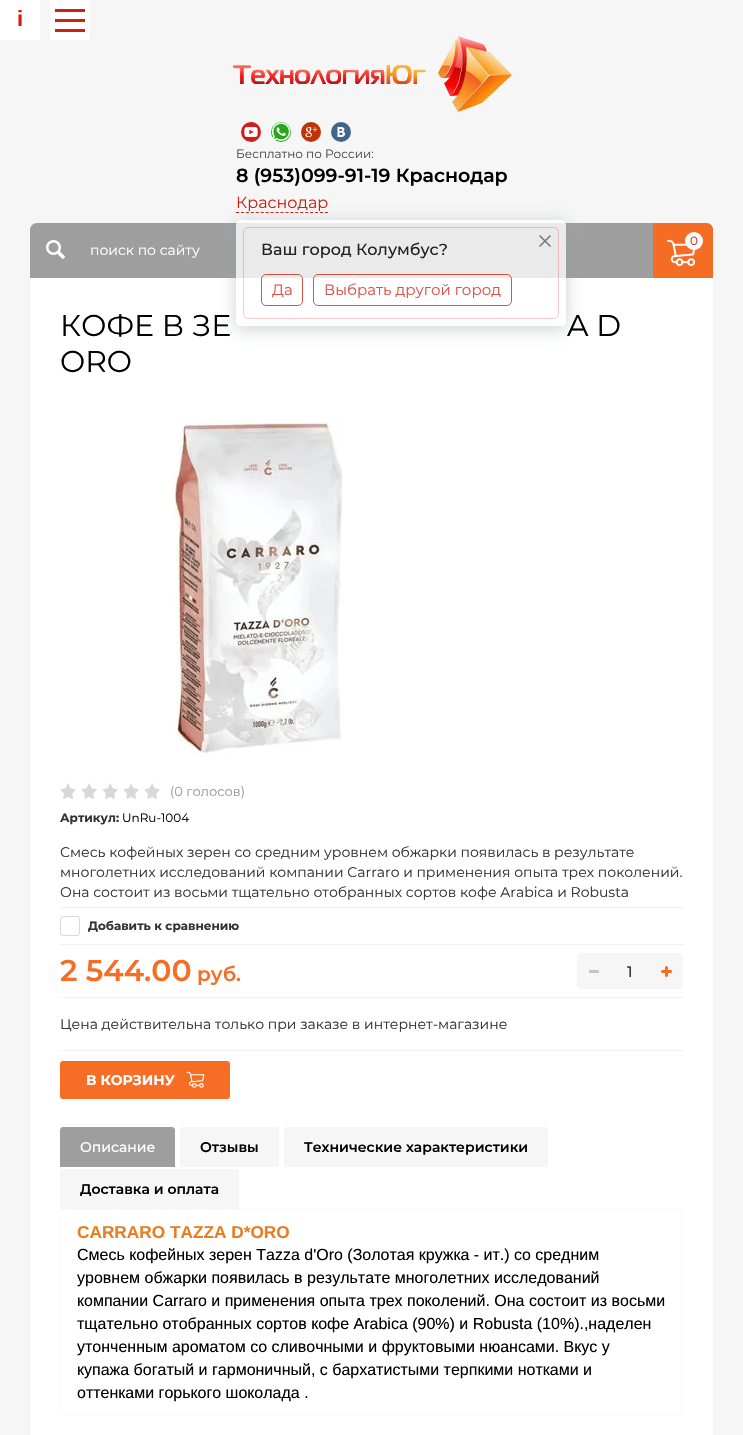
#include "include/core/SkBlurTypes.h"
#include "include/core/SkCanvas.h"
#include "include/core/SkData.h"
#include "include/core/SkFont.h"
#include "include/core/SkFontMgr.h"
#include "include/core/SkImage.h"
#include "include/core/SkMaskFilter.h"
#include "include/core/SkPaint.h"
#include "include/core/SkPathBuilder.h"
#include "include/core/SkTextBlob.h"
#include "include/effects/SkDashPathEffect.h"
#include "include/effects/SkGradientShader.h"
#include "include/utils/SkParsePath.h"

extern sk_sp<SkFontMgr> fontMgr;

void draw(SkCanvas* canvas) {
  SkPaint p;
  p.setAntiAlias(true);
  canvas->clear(SkColorSetRGB(246, 246, 246));
  p.setColor(SK_ColorWHITE);
  canvas->drawRect(SkRect::MakeLTRB(0, 0, 40, 40), p);
  canvas->drawRect(SkRect::MakeLTRB(50, 0, 90, 40), p);
  p.setColor(SkColorSetRGB(209, 32, 16));
  canvas->drawRect(SkRect::MakeLTRB(55, 9, 85, 12), p);
  canvas->drawRect(SkRect::MakeLTRB(55, 29, 85, 32), p);
  canvas->drawRect(SkRect::MakeLTRB(55, 19, 85, 22), p);
  canvas->drawImageRect(SkImages::DeferredFromEncodedData(SkData::MakeFromFileName("images/1.png")), SkRect::MakeLTRB(233, 36, 512, 112), SkSamplingOptions());
  canvas->drawImageRect(SkImages::DeferredFromEncodedData(SkData::MakeFromFileName("images/2.png")), SkRect::MakeLTRB(241, 122, 261, 142), SkSamplingOptions());
  canvas->drawImageRect(SkImages::DeferredFromEncodedData(SkData::MakeFromFileName("images/3.png")), SkRect::MakeLTRB(271, 122, 291, 142), SkSamplingOptions());
  canvas->drawImageRect(SkImages::DeferredFromEncodedData(SkData::MakeFromFileName("images/4.png")), SkRect::MakeLTRB(301, 122, 321, 142), SkSamplingOptions());
  canvas->drawImageRect(SkImages::DeferredFromEncodedData(SkData::MakeFromFileName("images/5.png")), SkRect::MakeLTRB(331, 122, 351, 142), SkSamplingOptions());
  p.setStyle(SkPaint::kStroke_Style);
  p.setStrokeWidth(1);
  p.setPathEffect(SkDashPathEffect::Make({{3, 1.94f}}, 0));
  canvas->drawPath(SkPathBuilder().moveTo(236, 212.5f).lineTo(328, 212.5f).detach(), p);
  p.setPathEffect(nullptr);
  p.setStyle(SkPaint::kFill_Style);
  p.setColor(SkColorSetRGB(158, 158, 158));
  canvas->drawPath(SkPathBuilder().moveTo(37, 223).lineTo(706, 223).cubicTo(710, 223, 713, 226, 713, 230).lineTo(713, 278).lineTo(30, 278).lineTo(30, 230).cubicTo(30, 226, 33, 223, 37, 223).close().detach(), p);
  p.setColor(SK_ColorWHITE);
  canvas->drawRect(SkRect::MakeLTRB(30, 278, 713, 1435), p);
  canvas->save();
  canvas->clipPath(SkPathBuilder(SkPathFillType::kEvenOdd).moveTo(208, 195).lineTo(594, 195).lineTo(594, 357).lineTo(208, 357).close().moveTo(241, 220).lineTo(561, 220).cubicTo(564, 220, 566, 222, 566, 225).lineTo(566, 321).cubicTo(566, 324, 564, 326, 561, 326).lineTo(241, 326).cubicTo(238, 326, 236, 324, 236, 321).lineTo(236, 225).cubicTo(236, 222, 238, 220, 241, 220).close().detach(), true);
  p.setColor(SkColorSetARGB(112, 146, 162, 169));
  p.setMaskFilter(SkMaskFilter::MakeBlur(kNormal_SkBlurStyle, 8.5f));
  canvas->drawRoundRect(SkRect::MakeLTRB(235, 222, 567, 330), 6, 6, p);
  p.setMaskFilter(nullptr);
  canvas->restore();
  p.setColor(SkColorSetARGB(199, 255, 255, 255));
  canvas->drawRoundRect(SkRect::MakeLTRB(236, 220, 566, 326), 5, 5, p);
  p.setStyle(SkPaint::kStroke_Style);
  p.setColor(SkColorSetARGB(199, 209, 32, 16));
  canvas->drawRoundRect(SkRect::MakeLTRB(261.5f, 274.5f, 302.5f, 305.5f), 4.5f, 4.5f, p);
  canvas->drawRoundRect(SkRect::MakeLTRB(313.5f, 274.5f, 511.5f, 305.5f), 4.5f, 4.5f, p);
  p.setColor(SkColorSetARGB(59, 209, 32, 16));
  canvas->drawRoundRect(SkRect::MakeLTRB(243.5f, 227.5f, 558.5f, 318.5f), 4.5f, 4.5f, p);
  canvas->drawImageRect(SkImages::DeferredFromEncodedData(SkData::MakeFromFileName("images/6.png")), SkRect::MakeLTRB(539, 235, 551, 247), SkSamplingOptions());
  p.setStyle(SkPaint::kFill_Style);
  p.setColor(SkColorSetRGB(245, 109, 37));
  canvas->drawPath(SkPathBuilder().moveTo(653, 223).lineTo(706, 223).cubicTo(710, 223, 713, 226, 713, 230).lineTo(713, 278).lineTo(653, 278).close().detach(), p);
  canvas->drawImageRect(SkImages::DeferredFromEncodedData(SkData::MakeFromFileName("images/7.png")), SkRect::MakeLTRB(667, 239, 696, 267), SkSamplingOptions());
  p.setColor(SK_ColorWHITE);
  canvas->drawCircle(694, 241, 9, p);
  canvas->drawImageRect(SkImages::DeferredFromEncodedData(SkData::MakeFromFileName("images/8.png")), SkRect::MakeLTRB(46, 240, 65, 259), SkSamplingOptions());
  canvas->drawImageRect(SkImages::DeferredFromEncodedData(SkData::MakeFromFileName("images/9.png")), SkRect::MakeLTRB(172, 421, 343, 757), SkSamplingOptions());
  canvas->drawImageRect(SkImages::DeferredFromEncodedData(SkData::MakeFromFileName("images/10.png")), SkRect::MakeLTRB(60, 783, 160, 799), SkSamplingOptions());
  p.setStyle(SkPaint::kStroke_Style);
  p.setColor(SkColorSetRGB(229, 229, 229));
  p.setPathEffect(SkDashPathEffect::Make({{1, 1}}, 0));
  canvas->drawPath(SkPathBuilder().moveTo(60, 907.5f).lineTo(683, 907.5f).detach(), p);
  p.setPathEffect(nullptr);
  p.setColor(SkColorSetRGB(217, 217, 217));
  canvas->drawRoundRect(SkRect::MakeLTRB(60.5f, 916.5f, 79.5f, 935.5f), 2.5f, 2.5f, p);
  p.setColor(SkColorSetRGB(229, 229, 229));
  p.setPathEffect(SkDashPathEffect::Make({{1, 1}}, 0));
  canvas->drawPath(SkPathBuilder().moveTo(60, 944.5f).lineTo(683, 944.5f).detach(), p);
  p.setPathEffect(nullptr);
  p.setPathEffect(SkDashPathEffect::Make({{1, 1}}, 0));
  canvas->drawPath(SkPathBuilder().moveTo(60, 997.5f).lineTo(683, 997.5f).detach(), p);
  p.setPathEffect(nullptr);
  p.setStyle(SkPaint::kFill_Style);
  p.setColor(SkColorSetRGB(246, 246, 246));
  canvas->drawPath(SkPathBuilder().moveTo(582, 953).lineTo(610, 953).lineTo(610, 989).lineTo(582, 989).cubicTo(579, 989, 577, 987, 577, 984).lineTo(577, 958).cubicTo(577, 955, 579, 953, 582, 953).close().detach(), p);
  p.setColor(SkColorSetRGB(197, 197, 197));
  canvas->drawRect(SkRect::MakeLTRB(589, 970, 599, 973), p);
  p.setColor(SkColorSetRGB(246, 246, 246));
  canvas->drawRect(SkRect::MakeLTRB(610, 953, 650, 989), p);
  canvas->drawPath(SkPathBuilder().moveTo(650, 953).lineTo(678, 953).cubicTo(681, 953, 683, 955, 683, 958).lineTo(683, 984).cubicTo(683, 987, 681, 989, 678, 989).lineTo(650, 989).close().detach(), p);
  canvas->drawImageRect(SkImages::DeferredFromEncodedData(SkData::MakeFromFileName("images/11.png")), SkRect::MakeLTRB(661, 966, 672, 977), SkSamplingOptions());
  p.setStyle(SkPaint::kStroke_Style);
  p.setColor(SkColorSetRGB(229, 229, 229));
  p.setPathEffect(SkDashPathEffect::Make({{1, 1}}, 0));
  canvas->drawPath(SkPathBuilder().moveTo(60, 1050.5f).lineTo(683, 1050.5f).detach(), p);
  p.setPathEffect(nullptr);
  p.setStyle(SkPaint::kFill_Style);
  p.setColor(SkColorSetRGB(246, 109, 37));
  canvas->drawRoundRect(SkRect::MakeLTRB(60, 1061, 230, 1099), 3, 3, p);
  canvas->drawImageRect(SkImages::DeferredFromEncodedData(SkData::MakeFromFileName("images/12.png")), SkRect::MakeLTRB(183, 1069, 205, 1092), SkSamplingOptions());
  p.setColor(SkColorSetRGB(158, 158, 158));
  canvas->drawPath(SkPathBuilder().moveTo(63, 1127).lineTo(172, 1127).cubicTo(173.5f, 1127, 175, 1128.5f, 175, 1130).lineTo(175, 1167).lineTo(60, 1167).lineTo(60, 1130).cubicTo(60, 1128.5f, 61.5f, 1127, 63, 1127).close().detach(), p);
  p.setColor(SkColorSetRGB(246, 246, 246));
  canvas->drawPath(SkPathBuilder().moveTo(183, 1127).lineTo(276, 1127).cubicTo(277.5f, 1127, 279, 1128.5f, 279, 1130).lineTo(279, 1167).lineTo(180, 1167).lineTo(180, 1130).cubicTo(180, 1128.5f, 181.5f, 1127, 183, 1127).close().detach(), p);
  canvas->drawPath(SkPathBuilder().moveTo(287, 1127).lineTo(545, 1127).cubicTo(546.5f, 1127, 548, 1128.5f, 548, 1130).lineTo(548, 1167).lineTo(284, 1167).lineTo(284, 1130).cubicTo(284, 1128.5f, 285.5f, 1127, 287, 1127).close().detach(), p);
  canvas->drawPath(SkPathBuilder().moveTo(63, 1169).lineTo(236, 1169).cubicTo(237.5f, 1169, 239, 1170.5f, 239, 1172).lineTo(239, 1209).lineTo(60, 1209).lineTo(60, 1172).cubicTo(60, 1170.5f, 61.5f, 1169, 63, 1169).close().detach(), p);
  p.setStyle(SkPaint::kStroke_Style);
  p.setColor(SkColorSetRGB(249, 249, 249));
  canvas->drawRoundRect(SkRect::MakeLTRB(60.5f, 1209.5f, 682.5f, 1414.5f), 2.5f, 2.5f, p);
  SkFont font1(fontMgr->matchFamilyStyle("Liberation Sans", SkFontStyle::Bold()), 22);
  font1.setSubpixel(true);
  p.setStyle(SkPaint::kFill_Style);
  p.setColor(SkColorSetRGB(209, 32, 16));
  canvas->drawString("i", 17, 26, font1, p);
  SkFont font2(fontMgr->matchFamilyStyle("Montserrat", SkFontStyle::Normal()), 12);
  font2.setSubpixel(true);
  p.setColor(SkColorSetRGB(74, 74, 74));
  canvas->drawString("Бесплатно по России:", 236, 158, font2, p);
  SkFont font3(fontMgr->matchFamilyStyle("Montserrat", SkFontStyle(600, SkFontStyle::kNormal_Width, SkFontStyle::kUpright_Slant)), 19);
  font3.setSubpixel(true);
  p.setColor(SK_ColorBLACK);
  canvas->drawString("8 (953)099-91-19 Краснодар", 236, 182, font3, p);
  SkFont font4(fontMgr->matchFamilyStyle("Montserrat", SkFontStyle::Normal()), 16);
  font4.setSubpixel(true);
  p.setColor(SkColorSetRGB(209, 32, 16));
  canvas->drawString("Краснодар", 236, 208, font4, p);
  SkFont font5(fontMgr->matchFamilyStyle("Montserrat", SkFontStyle(500, SkFontStyle::kNormal_Width, SkFontStyle::kUpright_Slant)), 16);
  font5.setSubpixel(true);
  p.setColor(SkColorSetRGB(35, 35, 35));
  canvas->drawString("Ваш город Колумбус?", 261, 255, font5, p);
  SkFont font6(fontMgr->matchFamilyStyle("Montserrat", SkFontStyle::Normal()), 15);
  font6.setSubpixel(true);
  p.setColor(SkColorSetRGB(219, 81, 68));
  canvas->drawString("Да", 272, 295, font6, p);
  canvas->drawString("Выбрать другой город", 324, 295, font6, p);
  p.setColor(SkColorSetRGB(224, 35, 15));
  canvas->drawString("0", 690, 245, font2, p);
  SkFont font7(fontMgr->matchFamilyStyle("Montserrat", SkFontStyle::Normal()), 14);
  font7.setSubpixel(true);
  p.setColor(SK_ColorWHITE);
  canvas->drawString("поиск по сайту", 90, 255, font7, p);
  SkFont font8(fontMgr->matchFamilyStyle("Montserrat", SkFontStyle::Normal()), 30);
  font8.setSubpixel(true);
  p.setColor(SK_ColorBLACK);
  canvas->drawString("КОФЕ В ЗЕ", 60, 336, font8, p);
  canvas->drawString("A D", 567, 336, font8, p);
  canvas->drawString("ORO", 60, 372, font8, p);
  SkFont font9(fontMgr->matchFamilyStyle("Montserrat", SkFontStyle::Normal()), 13);
  font9.setSubpixel(true);
  p.setColor(SkColorSetRGB(153, 153, 153));
  canvas->drawString("(0 голосов)", 170, 796, font9, p);
  SkFont font10(fontMgr->matchFamilyStyle("Montserrat", SkFontStyle::Bold()), 12);
  font10.setSubpixel(true);
  p.setColor(SkColorSetRGB(51, 51, 51));
  canvas->drawString("Артикул:", 60, 822, font10, p);
  p.setColor(SK_ColorBLACK);
  canvas->drawString("UnRu-1004", 122, 822, font2, p);
  p.setColor(SkColorSetRGB(51, 51, 51));
  canvas->drawString("Смесь кофейных зерен со средним уровнем обжарки появилась в результате", 60, 857, font7, p);
  canvas->drawString("многолетних исследований компании Carraro и применения опыта трех поколений.", 60, 877, font7, p);
  canvas->drawString("Она состоит из восьми тщательно отобранных сортов кофе Arabica и Robusta", 60, 897, font7, p);
  canvas->drawString("Добавить к сравнению", 88, 930, font10, p);
  SkFont font11(fontMgr->matchFamilyStyle("Montserrat", SkFontStyle(600, SkFontStyle::kNormal_Width, SkFontStyle::kUpright_Slant)), 30);
  font11.setSubpixel(true);
  p.setColor(SkColorSetRGB(246, 109, 37));
  canvas->drawString("2 544.00", 60, 981, font11, p);
  SkFont font12(fontMgr->matchFamilyStyle("Montserrat", SkFontStyle(600, SkFontStyle::kNormal_Width, SkFontStyle::kUpright_Slant)), 20);
  font12.setSubpixel(true);
  canvas->drawString("руб.", 197, 981, font12, p);
  p.setColor(SK_ColorBLACK);
  canvas->drawString("1", 627, 977, font6, p);
  p.setColor(SkColorSetRGB(51, 51, 51));
  canvas->drawString("Цена действительна только при заказе в интернет-магазине", 60, 1029, font7, p);
  SkFont font13(fontMgr->matchFamilyStyle("Montserrat", SkFontStyle::Bold()), 14);
  font13.setSubpixel(true);
  p.setColor(SK_ColorWHITE);
  canvas->drawString("В КОРЗИНУ", 86, 1085, font13, p);
  SkFont font14(fontMgr->matchFamilyStyle("Montserrat", SkFontStyle(500, SkFontStyle::kNormal_Width, SkFontStyle::kUpright_Slant)), 14);
  font14.setSubpixel(true);
  canvas->drawString("Описание", 80, 1152, font14, p);
  SkFont font15(fontMgr->matchFamilyStyle("Montserrat", SkFontStyle(600, SkFontStyle::kNormal_Width, SkFontStyle::kUpright_Slant)), 14);
  font15.setSubpixel(true);
  p.setColor(SK_ColorBLACK);
  canvas->drawString("Отзывы", 200, 1152, font15, p);
  canvas->drawString("Технические характеристики", 304, 1152, font15, p);
  canvas->drawString("Доставка и оплата", 80, 1194, font15, p);
  SkFont font16(fontMgr->matchFamilyStyle("Liberation Sans", SkFontStyle::Bold()), 17.25f);
  font16.setSubpixel(true);
  p.setColor(SkColorSetRGB(230, 126, 34));
  canvas->drawString("CARRARO TAZZA D*ORO", 77, 1238, font16, p);
  SkFont font17(fontMgr->matchFamilyStyle("Liberation Sans", SkFontStyle::Normal()), 16);
  font17.setSubpixel(true);
  p.setColor(SK_ColorBLACK);
  canvas->drawString("Смесь кофейных зерен Tazza d'Oro (Золотая кружка - ит.) со средним", 77, 1260, font17, p);
  canvas->drawString("уровнем обжарки появилась в результате многолетних исследований", 77, 1283, font17, p);
  canvas->drawString("компании Carraro и применения опыта трех поколений. Она состоит из восьми", 77, 1306, font17, p);
  canvas->drawString("тщательно отобранных сортов кофе Arabica (90%) и Robusta (10%).,наделен", 77, 1329, font17, p);
  canvas->drawString("утонченным ароматом со сливочными и фруктовыми нюансами. Вкус у", 77, 1352, font17, p);
  canvas->drawString("купажа богатый и гармоничный, с бархатистыми терпкими нотками и", 77, 1375, font17, p);
  canvas->drawString("оттенками горького шоколада .", 77, 1398, font17, p);
}
